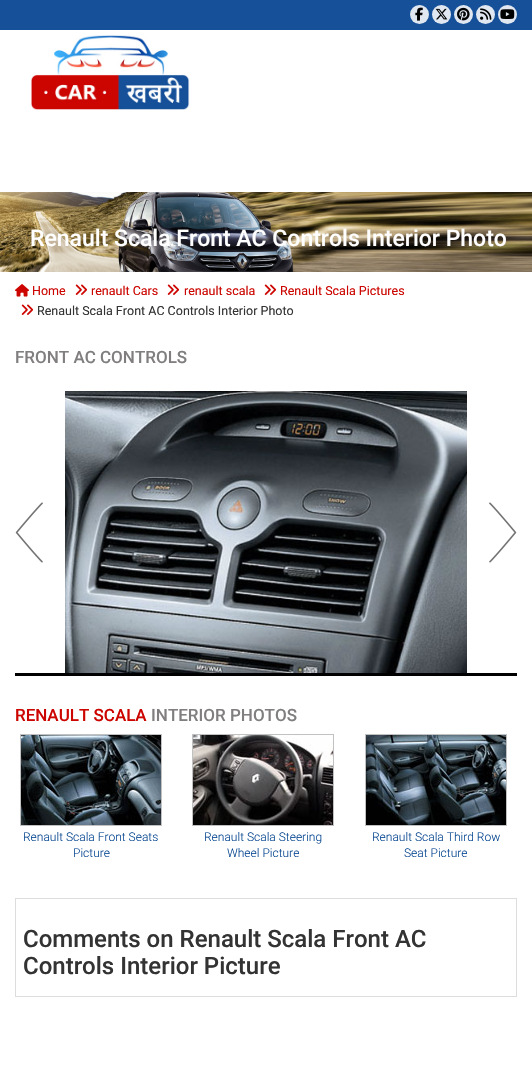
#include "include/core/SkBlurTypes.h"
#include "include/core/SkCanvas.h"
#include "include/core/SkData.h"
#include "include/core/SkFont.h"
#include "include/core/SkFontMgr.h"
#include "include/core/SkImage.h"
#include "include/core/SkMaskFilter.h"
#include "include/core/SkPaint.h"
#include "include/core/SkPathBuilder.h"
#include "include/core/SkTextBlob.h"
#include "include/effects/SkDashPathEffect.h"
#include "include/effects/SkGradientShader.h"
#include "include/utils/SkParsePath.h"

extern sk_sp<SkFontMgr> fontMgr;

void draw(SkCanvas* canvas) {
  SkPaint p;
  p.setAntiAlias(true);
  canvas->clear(SK_ColorWHITE);
  p.setColor(SkColorSetRGB(22, 80, 153));
  canvas->drawRect(SkRect::MakeLTRB(0, 0, 532, 30), p);
  p.setColor(SkColorSetRGB(224, 231, 241));
  canvas->drawCircle(419.5f, 14.5f, 9.5f, p);
  canvas->drawImageRect(SkImages::DeferredFromEncodedData(SkData::MakeFromFileName("images/1.png")), SkRect::MakeLTRB(415, 7, 423, 21), SkSamplingOptions());
  canvas->drawCircle(441.5f, 14.5f, 9.5f, p);
  canvas->drawImageRect(SkImages::DeferredFromEncodedData(SkData::MakeFromFileName("images/2.png")), SkRect::MakeLTRB(435, 8, 448, 20), SkSamplingOptions());
  canvas->drawCircle(463.5f, 14.5f, 9.5f, p);
  canvas->drawImageRect(SkImages::DeferredFromEncodedData(SkData::MakeFromFileName("images/3.png")), SkRect::MakeLTRB(457, 7, 470, 21), SkSamplingOptions());
  canvas->drawCircle(485.5f, 14.5f, 9.5f, p);
  canvas->drawImageRect(SkImages::DeferredFromEncodedData(SkData::MakeFromFileName("images/4.png")), SkRect::MakeLTRB(480, 8, 492, 20), SkSamplingOptions());
  canvas->drawCircle(507.5f, 14.5f, 9.5f, p);
  canvas->drawImageRect(SkImages::DeferredFromEncodedData(SkData::MakeFromFileName("images/5.png")), SkRect::MakeLTRB(500, 9, 515, 19), SkSamplingOptions());
  canvas->drawImageRect(SkImages::DeferredFromEncodedData(SkData::MakeFromFileName("images/6.png")), SkRect::MakeLTRB(31, 35, 190, 110), SkSamplingOptions());
  canvas->drawImageRect(SkImages::DeferredFromEncodedData(SkData::MakeFromFileName("images/7.png")), SkRect::MakeLTRB(0, 192, 532, 272), SkSamplingOptions());
  canvas->drawImageRect(SkImages::DeferredFromEncodedData(SkData::MakeFromFileName("images/8.png")), SkRect::MakeLTRB(15, 284, 29, 297), SkSamplingOptions());
  canvas->drawImageRect(SkImages::DeferredFromEncodedData(SkData::MakeFromFileName("images/9.png")), SkRect::MakeLTRB(75, 284, 88, 295), SkSamplingOptions());
  canvas->drawImageRect(SkImages::DeferredFromEncodedData(SkData::MakeFromFileName("images/9.png")), SkRect::MakeLTRB(167, 284, 180, 295), SkSamplingOptions());
  canvas->drawImageRect(SkImages::DeferredFromEncodedData(SkData::MakeFromFileName("images/9.png")), SkRect::MakeLTRB(264, 284, 277, 295), SkSamplingOptions());
  canvas->drawImageRect(SkImages::DeferredFromEncodedData(SkData::MakeFromFileName("images/9.png")), SkRect::MakeLTRB(21, 304, 34, 315), SkSamplingOptions());
  p.setColor(SK_ColorBLACK);
  canvas->drawRect(SkRect::MakeLTRB(15, 673, 517, 676), p);
  canvas->drawImageRect(SkImages::DeferredFromEncodedData(SkData::MakeFromFileName("images/10.png")), SkRect::MakeLTRB(15, 502, 43, 563), SkSamplingOptions());
  canvas->drawImageRect(SkImages::DeferredFromEncodedData(SkData::MakeFromFileName("images/11.png")), SkRect::MakeLTRB(65, 391, 467, 673), SkSamplingOptions());
  canvas->drawImageRect(SkImages::DeferredFromEncodedData(SkData::MakeFromFileName("images/12.png")), SkRect::MakeLTRB(489, 502, 517, 563), SkSamplingOptions());
  p.setStyle(SkPaint::kStroke_Style);
  p.setStrokeWidth(1);
  p.setColor(SkColorSetRGB(193, 193, 193));
  canvas->drawRect(SkRect::MakeLTRB(20.5f, 734.5f, 161.5f, 825.5f), p);
  canvas->drawImageRect(SkImages::DeferredFromEncodedData(SkData::MakeFromFileName("images/13.png")), SkRect::MakeLTRB(21, 735, 161, 825), SkSamplingOptions());
  canvas->drawRect(SkRect::MakeLTRB(192.5f, 734.5f, 333.5f, 825.5f), p);
  canvas->drawImageRect(SkImages::DeferredFromEncodedData(SkData::MakeFromFileName("images/14.png")), SkRect::MakeLTRB(193, 735, 333, 825), SkSamplingOptions());
  canvas->drawRect(SkRect::MakeLTRB(365.5f, 734.5f, 506.5f, 825.5f), p);
  canvas->drawImageRect(SkImages::DeferredFromEncodedData(SkData::MakeFromFileName("images/15.png")), SkRect::MakeLTRB(366, 735, 506, 825), SkSamplingOptions());
  p.setColor(SkColorSetRGB(221, 221, 221));
  canvas->drawRect(SkRect::MakeLTRB(15.5f, 898.5f, 516.5f, 996.5f), p);
  SkFont font1(fontMgr->matchFamilyStyle("Roboto", SkFontStyle(500, SkFontStyle::kNormal_Width, SkFontStyle::kUpright_Slant)), 23);
  font1.setSubpixel(true);
  p.setStyle(SkPaint::kFill_Style);
  p.setColor(SK_ColorWHITE);
  canvas->drawString("Renault Scala Front AC Controls Interior Photo", 30, 246, font1, p);
  SkFont font2(fontMgr->matchFamilyStyle("Roboto", SkFontStyle::Normal()), 12.5f);
  font2.setSubpixel(true);
  p.setColor(SkColorSetRGB(204, 5, 0));
  canvas->drawString("Home", 32, 295, font2, p);
  canvas->drawString("renault Cars", 91, 295, font2, p);
  canvas->drawString("renault scala", 184, 295, font2, p);
  canvas->drawString("Renault Scala Pictures", 280, 295, font2, p);
  p.setColor(SkColorSetRGB(51, 51, 51));
  canvas->drawString("Renault Scala Front AC Controls Interior Photo", 37, 315, font2, p);
  SkFont font3(fontMgr->matchFamilyStyle("Roboto", SkFontStyle(500, SkFontStyle::kNormal_Width, SkFontStyle::kUpright_Slant)), 17);
  font3.setSubpixel(true);
  p.setColor(SkColorSetRGB(128, 126, 126));
  canvas->drawString("FRONT AC CONTROLS", 15, 363, font3, p);
  p.setColor(SkColorSetRGB(204, 5, 0));
  canvas->drawString("RENAULT SCALA", 15, 721, font3, p);
  p.setColor(SkColorSetRGB(128, 126, 126));
  canvas->drawString("INTERIOR PHOTOS", 151, 721, font3, p);
  SkFont font4(fontMgr->matchFamilyStyle("Roboto", SkFontStyle(300, SkFontStyle::kNormal_Width, SkFontStyle::kUpright_Slant)), 12);
  font4.setSubpixel(true);
  p.setColor(SkColorSetRGB(6, 70, 144));
  canvas->drawString("Renault Scala Front Seats", 23, 841, font4, p);
  canvas->drawString("Picture", 73, 857, font4, p);
  canvas->drawString("Renault Scala Steering", 204, 841, font4, p);
  canvas->drawString("Wheel Picture", 227, 857, font4, p);
  canvas->drawString("Renault Scala Third Row", 372, 841, font4, p);
  canvas->drawString("Seat Picture", 404, 857, font4, p);
  SkFont font5(fontMgr->matchFamilyStyle("Roboto", SkFontStyle(500, SkFontStyle::kNormal_Width, SkFontStyle::kUpright_Slant)), 24);
  font5.setSubpixel(true);
  p.setColor(SkColorSetRGB(51, 51, 51));
  canvas->drawString("Comments on Renault Scala Front AC", 23, 947, font5, p);
  canvas->drawString("Controls Interior Picture", 23, 974, font5, p);
}
